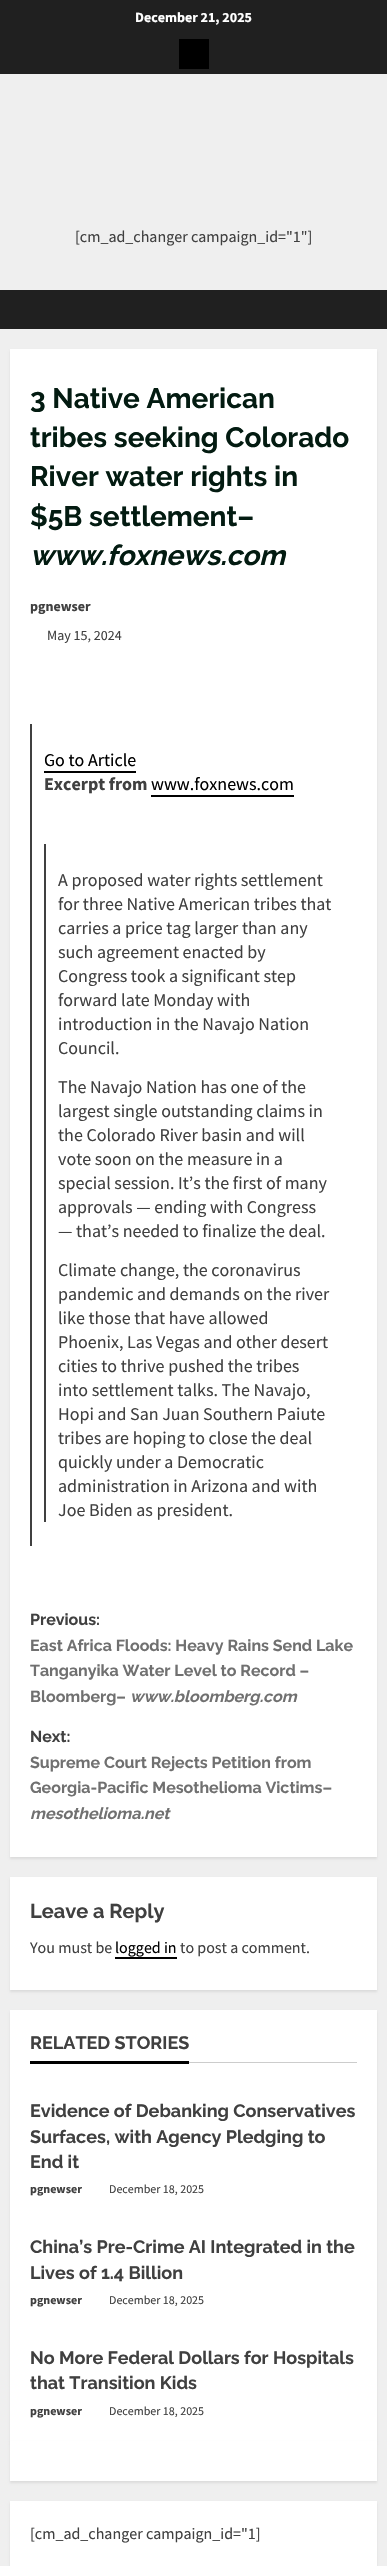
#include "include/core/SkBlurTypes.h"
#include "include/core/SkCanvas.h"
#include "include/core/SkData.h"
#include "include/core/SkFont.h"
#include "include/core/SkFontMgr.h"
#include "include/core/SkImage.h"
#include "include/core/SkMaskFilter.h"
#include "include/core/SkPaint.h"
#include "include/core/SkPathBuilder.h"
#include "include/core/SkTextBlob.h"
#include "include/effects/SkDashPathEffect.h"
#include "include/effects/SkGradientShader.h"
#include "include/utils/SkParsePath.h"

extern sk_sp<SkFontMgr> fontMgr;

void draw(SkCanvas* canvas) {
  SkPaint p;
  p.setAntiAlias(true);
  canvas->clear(SkColorSetRGB(239, 239, 239));
  p.setColor(SkColorSetRGB(32, 32, 32));
  canvas->drawRect(SkRect::MakeLTRB(0, 0, 387, 74), p);
  p.setColor(SK_ColorBLACK);
  canvas->drawRect(SkRect::MakeLTRB(179, 39, 209, 69), p);
  p.setColor(SkColorSetRGB(32, 32, 32));
  canvas->drawRect(SkRect::MakeLTRB(0, 290, 387, 329), p);
  p.setColor(SkColorSetARGB(20, 0, 0, 0));
  p.setMaskFilter(SkMaskFilter::MakeBlur(kNormal_SkBlurStyle, 1));
  canvas->drawRect(SkRect::MakeLTRB(10, 351, 377, 1859), p);
  p.setMaskFilter(nullptr);
  p.setColor(SK_ColorWHITE);
  canvas->drawRect(SkRect::MakeLTRB(10, 349, 377, 1857), p);
  p.setColor(SkColorSetRGB(64, 64, 64));
  canvas->drawRect(SkRect::MakeLTRB(30, 724, 32, 1546), p);
  p.setColor(SK_ColorBLACK);
  canvas->drawRect(SkRect::MakeLTRB(44, 771, 136, 773), p);
  canvas->drawRect(SkRect::MakeLTRB(151, 795, 294, 797), p);
  p.setColor(SkColorSetRGB(64, 64, 64));
  canvas->drawRect(SkRect::MakeLTRB(44, 844, 46, 1522), p);
  p.setColor(SkColorSetARGB(20, 0, 0, 0));
  p.setMaskFilter(SkMaskFilter::MakeBlur(kNormal_SkBlurStyle, 1));
  canvas->drawRect(SkRect::MakeLTRB(10, 1879, 377, 1992), p);
  p.setMaskFilter(nullptr);
  p.setColor(SK_ColorWHITE);
  canvas->drawRect(SkRect::MakeLTRB(10, 1877, 377, 1990), p);
  p.setColor(SK_ColorBLACK);
  canvas->drawRect(SkRect::MakeLTRB(115, 1957, 177, 1959), p);
  p.setColor(SkColorSetARGB(20, 0, 0, 0));
  p.setMaskFilter(SkMaskFilter::MakeBlur(kNormal_SkBlurStyle, 1));
  canvas->drawRect(SkRect::MakeLTRB(10, 2012, 377, 2443), p);
  p.setMaskFilter(nullptr);
  p.setColor(SK_ColorWHITE);
  canvas->drawRect(SkRect::MakeLTRB(10, 2010, 377, 2441), p);
  p.setColor(SkColorSetRGB(204, 204, 204));
  canvas->drawRect(SkRect::MakeLTRB(189, 2062, 357, 2063), p);
  p.setColor(SK_ColorBLACK);
  canvas->drawRect(SkRect::MakeLTRB(30, 2061, 189, 2064), p);
  p.setColor(SkColorSetARGB(20, 0, 0, 0));
  p.setMaskFilter(SkMaskFilter::MakeBlur(kNormal_SkBlurStyle, 1));
  canvas->drawRect(SkRect::MakeLTRB(10, 2443, 377, 2483), p);
  p.setMaskFilter(nullptr);
  p.setColor(SK_ColorWHITE);
  canvas->drawRect(SkRect::MakeLTRB(10, 2441, 377, 2481), p);
  p.setColor(SkColorSetARGB(20, 0, 0, 0));
  p.setMaskFilter(SkMaskFilter::MakeBlur(kNormal_SkBlurStyle, 1));
  canvas->drawRect(SkRect::MakeLTRB(10, 2503, 377, 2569), p);
  p.setMaskFilter(nullptr);
  p.setColor(SK_ColorWHITE);
  canvas->drawRect(SkRect::MakeLTRB(10, 2501, 377, 2566), p);
  SkFont font1(fontMgr->matchFamilyStyle("Source Sans Pro", SkFontStyle::Bold()), 14);
  font1.setSubpixel(true);
  canvas->drawString("December 21, 2025", 135, 22, font1, p);
  SkFont font2(fontMgr->matchFamilyStyle("Source Sans Pro", SkFontStyle::Normal()), 16);
  font2.setSubpixel(true);
  p.setColor(SkColorSetRGB(64, 64, 64));
  canvas->drawString("[cm_ad_changer campaign_id=\"1\"]", 75, 242, font2, p);
  SkFont font3(fontMgr->matchFamilyStyle("Raleway", SkFontStyle::Bold()), 28);
  font3.setSubpixel(true);
  p.setColor(SkColorSetRGB(3, 27, 17));
  canvas->drawString("3 Native American", 30, 408, font3, p);
  canvas->drawString("tribes seeking Colorado", 30, 447, font3, p);
  canvas->drawString("River water rights in", 30, 486, font3, p);
  canvas->drawString("$5B settlement–", 30, 526, font3, p);
  SkFont font4(fontMgr->matchFamilyStyle("Raleway", SkFontStyle::BoldItalic()), 28);
  font4.setSubpixel(true);
  canvas->drawString("www.foxnews.com", 30, 565, font4, p);
  p.setColor(SkColorSetRGB(64, 64, 64));
  canvas->drawString("pgnewser", 30, 611, font1, p);
  SkFont font5(fontMgr->matchFamilyStyle("Source Sans Pro", SkFontStyle::Normal()), 14);
  font5.setSubpixel(true);
  canvas->drawString("May 15, 2024", 47, 640, font5, p);
  SkFont font6(fontMgr->matchFamilyStyle("Source Sans Pro", SkFontStyle::Normal()), 18);
  font6.setSubpixel(true);
  p.setColor(SK_ColorBLACK);
  canvas->drawString("Go to Article", 44, 766, font6, p);
  SkFont font7(fontMgr->matchFamilyStyle("Source Sans Pro", SkFontStyle::Bold()), 18);
  font7.setSubpixel(true);
  p.setColor(SkColorSetRGB(64, 64, 64));
  canvas->drawString("Excerpt from", 44, 790, font7, p);
  p.setColor(SK_ColorBLACK);
  canvas->drawString("www.foxnews.com", 151, 790, font6, p);
  p.setColor(SkColorSetRGB(64, 64, 64));
  canvas->drawString("A proposed water rights settlement", 58, 886, font6, p);
  canvas->drawString("for three Native American tribes that", 58, 910, font6, p);
  canvas->drawString("carries a price tag larger than any", 58, 934, font6, p);
  canvas->drawString("such agreement enacted by", 58, 958, font6, p);
  canvas->drawString("Congress took a significant step", 58, 982, font6, p);
  canvas->drawString("forward late Monday with", 58, 1006, font6, p);
  canvas->drawString("introduction in the Navajo Nation", 58, 1030, font6, p);
  canvas->drawString("Council.", 58, 1054, font6, p);
  canvas->drawString("The Navajo Nation has one of the", 58, 1093, font6, p);
  canvas->drawString("largest single outstanding claims in", 58, 1117, font6, p);
  canvas->drawString("the Colorado River basin and will", 58, 1141, font6, p);
  canvas->drawString("vote soon on the measure in a", 58, 1165, font6, p);
  canvas->drawString("special session. It’s the first of many", 58, 1189, font6, p);
  canvas->drawString("approvals — ending with Congress", 58, 1213, font6, p);
  canvas->drawString("— that’s needed to finalize the deal.", 58, 1237, font6, p);
  canvas->drawString("Climate change, the coronavirus", 58, 1276, font6, p);
  canvas->drawString("pandemic and demands on the river", 58, 1300, font6, p);
  canvas->drawString("like those that have allowed", 58, 1324, font6, p);
  canvas->drawString("Phoenix, Las Vegas and other desert", 58, 1348, font6, p);
  canvas->drawString("cities to thrive pushed the tribes", 58, 1372, font6, p);
  canvas->drawString("into settlement talks. The Navajo,", 58, 1396, font6, p);
  canvas->drawString("Hopi and San Juan Southern Paiute", 58, 1420, font6, p);
  canvas->drawString("tribes are hoping to close the deal", 58, 1444, font6, p);
  canvas->drawString("quickly under a Democratic", 58, 1468, font6, p);
  canvas->drawString("administration in Arizona and with", 58, 1492, font6, p);
  canvas->drawString("Joe Biden as president.", 58, 1516, font6, p);
  SkFont font8(fontMgr->matchFamilyStyle("Raleway", SkFontStyle::Bold()), 16);
  font8.setSubpixel(true);
  canvas->drawString("Previous:", 30, 1625, font8, p);
  p.setColor(SkColorSetRGB(112, 112, 112));
  canvas->drawString("East Africa Floods: Heavy Rains Send Lake", 30, 1651, font8, p);
  canvas->drawString("Tanganyika Water Level to Record –", 30, 1676, font8, p);
  canvas->drawString("Bloomberg–", 30, 1702, font8, p);
  SkFont font9(fontMgr->matchFamilyStyle("Raleway", SkFontStyle::BoldItalic()), 16);
  font9.setSubpixel(true);
  canvas->drawString("www.bloomberg.com", 130, 1702, font9, p);
  p.setColor(SkColorSetRGB(64, 64, 64));
  canvas->drawString("Next:", 30, 1742, font8, p);
  p.setColor(SkColorSetRGB(112, 112, 112));
  canvas->drawString("Supreme Court Rejects Petition from", 30, 1768, font8, p);
  canvas->drawString("Georgia-Pacific Mesothelioma Victims–", 30, 1793, font8, p);
  canvas->drawString("mesothelioma.net", 30, 1819, font9, p);
  SkFont font10(fontMgr->matchFamilyStyle("Raleway", SkFontStyle::Bold()), 20);
  font10.setSubpixel(true);
  p.setColor(SkColorSetRGB(64, 64, 64));
  canvas->drawString("Leave a Reply", 30, 1918, font10, p);
  canvas->drawString("You must be", 30, 1953, font2, p);
  p.setColor(SK_ColorBLACK);
  canvas->drawString("logged in", 115, 1953, font2, p);
  p.setColor(SkColorSetRGB(64, 64, 64));
  canvas->drawString("to post a comment.", 180, 1953, font2, p);
  SkFont font11(fontMgr->matchFamilyStyle("Raleway", SkFontStyle::Bold()), 18);
  font11.setSubpixel(true);
  canvas->drawString("RELATED STORIES", 30, 2049, font11, p);
  canvas->drawString("Evidence of Debanking Conservatives", 30, 2117, font11, p);
  canvas->drawString("Surfaces, with Agency Pledging to", 30, 2143, font11, p);
  canvas->drawString("End it", 30, 2168, font11, p);
  SkFont font12(fontMgr->matchFamilyStyle("Source Sans Pro", SkFontStyle::Bold()), 12);
  font12.setSubpixel(true);
  canvas->drawString("pgnewser", 30, 2193, font12, p);
  SkFont font13(fontMgr->matchFamilyStyle("Source Sans Pro", SkFontStyle::Normal()), 12);
  font13.setSubpixel(true);
  canvas->drawString("December 18, 2025", 109, 2193, font13, p);
  canvas->drawString("China’s Pre-Crime AI Integrated in the", 30, 2253, font11, p);
  canvas->drawString("Lives of 1.4 Billion", 30, 2279, font11, p);
  canvas->drawString("pgnewser", 30, 2304, font12, p);
  canvas->drawString("December 18, 2025", 109, 2304, font13, p);
  canvas->drawString("No More Federal Dollars for Hospitals", 30, 2364, font11, p);
  canvas->drawString("that Transition Kids", 30, 2389, font11, p);
  canvas->drawString("pgnewser", 30, 2415, font12, p);
  canvas->drawString("December 18, 2025", 109, 2415, font13, p);
  canvas->drawString("[cm_ad_changer campaign_id=\"1]", 30, 2539, font2, p);
}
